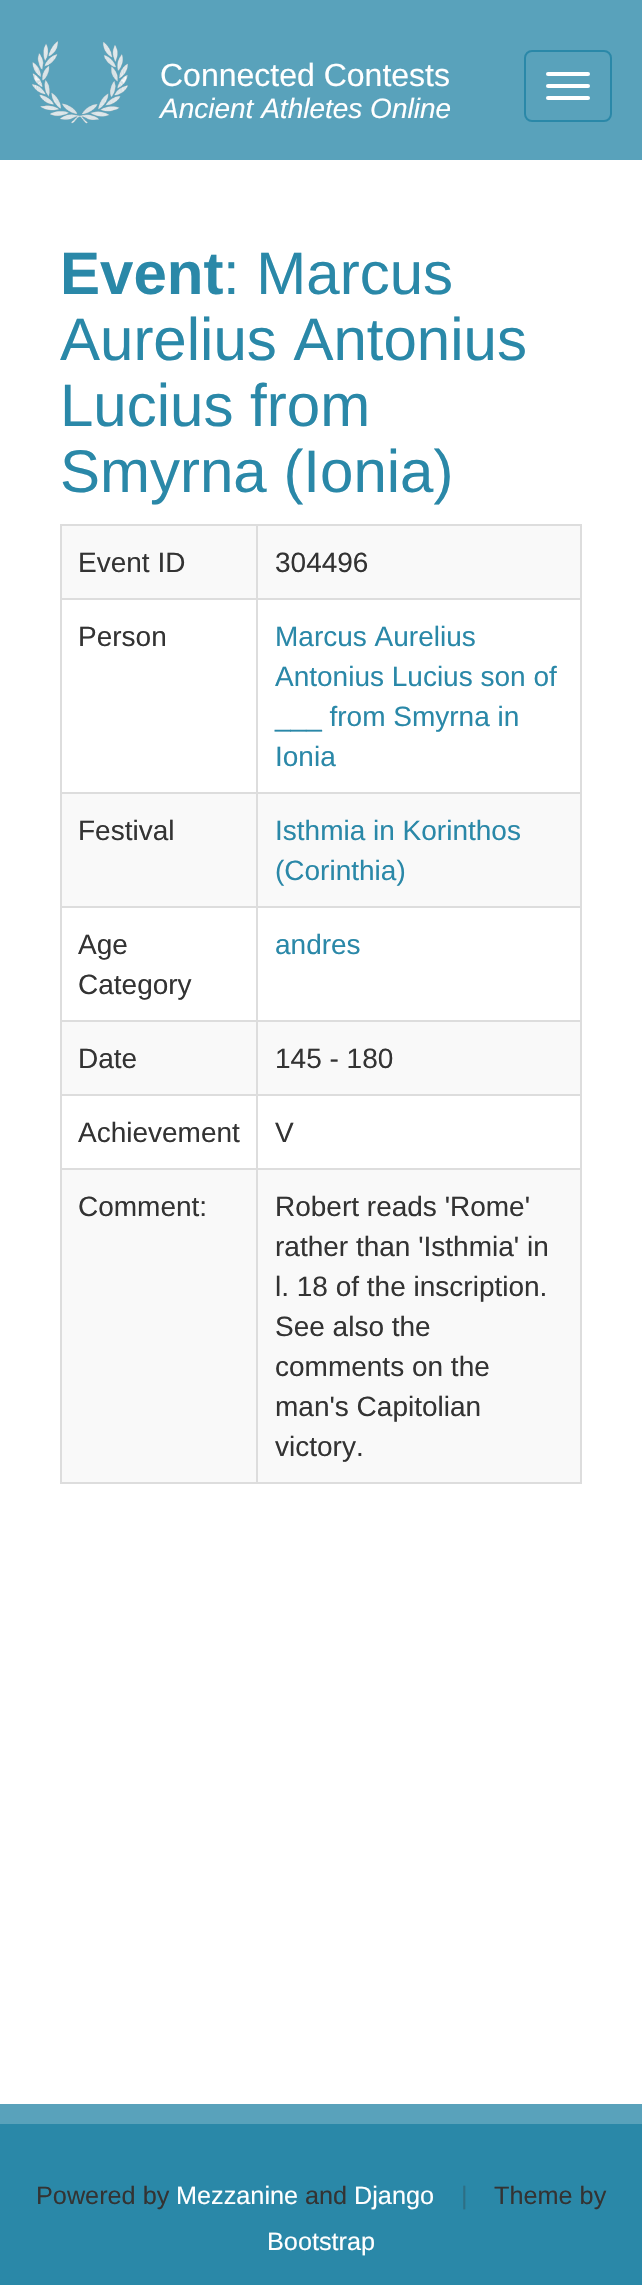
#include "include/core/SkBlurTypes.h"
#include "include/core/SkCanvas.h"
#include "include/core/SkData.h"
#include "include/core/SkFont.h"
#include "include/core/SkFontMgr.h"
#include "include/core/SkImage.h"
#include "include/core/SkMaskFilter.h"
#include "include/core/SkPaint.h"
#include "include/core/SkPathBuilder.h"
#include "include/core/SkTextBlob.h"
#include "include/effects/SkDashPathEffect.h"
#include "include/effects/SkGradientShader.h"
#include "include/utils/SkParsePath.h"

extern sk_sp<SkFontMgr> fontMgr;

void draw(SkCanvas* canvas) {
  SkPaint p;
  p.setAntiAlias(true);
  canvas->clear(SK_ColorWHITE);
  p.setColor(SkColorSetRGB(89, 162, 187));
  canvas->drawRect(SkRect::MakeLTRB(0, 0, 642, 160), p);
  canvas->drawImageRect(SkImages::DeferredFromEncodedData(SkData::MakeFromFileName("images/1.png")), SkRect::MakeLTRB(32, 41, 128, 124), SkSamplingOptions());
  p.setStyle(SkPaint::kStroke_Style);
  p.setStrokeWidth(2);
  p.setColor(SkColorSetRGB(42, 136, 168));
  canvas->drawRoundRect(SkRect::MakeLTRB(525, 51, 611, 121), 7, 7, p);
  p.setStyle(SkPaint::kFill_Style);
  p.setColor(SK_ColorWHITE);
  canvas->drawRoundRect(SkRect::MakeLTRB(546, 72, 590, 76), 2, 2, p);
  canvas->drawRoundRect(SkRect::MakeLTRB(546, 84, 590, 88), 2, 2, p);
  canvas->drawRoundRect(SkRect::MakeLTRB(546, 96, 590, 100), 2, 2, p);
  p.setColor(SkColorSetRGB(221, 221, 221));
  canvas->drawRect(SkRect::MakeLTRB(60, 524, 582, 526), p);
  canvas->drawRect(SkRect::MakeLTRB(580, 524, 582, 1484), p);
  canvas->drawRect(SkRect::MakeLTRB(60, 1482, 582, 1484), p);
  canvas->drawRect(SkRect::MakeLTRB(60, 524, 62, 1484), p);
  p.setColor(SkColorSetRGB(249, 249, 249));
  canvas->drawRect(SkRect::MakeLTRB(62, 526, 580, 598), p);
  p.setColor(SkColorSetRGB(221, 221, 221));
  canvas->drawRect(SkRect::MakeLTRB(256, 598, 582, 600), p);
  canvas->drawRect(SkRect::MakeLTRB(256, 792, 582, 794), p);
  p.setColor(SkColorSetRGB(249, 249, 249));
  canvas->drawRect(SkRect::MakeLTRB(62, 794, 580, 906), p);
  p.setColor(SkColorSetRGB(221, 221, 221));
  canvas->drawRect(SkRect::MakeLTRB(256, 906, 582, 908), p);
  canvas->drawRect(SkRect::MakeLTRB(256, 1020, 582, 1022), p);
  p.setColor(SkColorSetRGB(249, 249, 249));
  canvas->drawRect(SkRect::MakeLTRB(62, 1022, 580, 1094), p);
  p.setColor(SkColorSetRGB(221, 221, 221));
  canvas->drawRect(SkRect::MakeLTRB(256, 1094, 582, 1096), p);
  canvas->drawRect(SkRect::MakeLTRB(256, 1168, 582, 1170), p);
  p.setColor(SkColorSetRGB(249, 249, 249));
  canvas->drawRect(SkRect::MakeLTRB(62, 1170, 580, 1482), p);
  p.setColor(SkColorSetRGB(221, 221, 221));
  canvas->drawRect(SkRect::MakeLTRB(256, 1168, 258, 1484), p);
  canvas->drawRect(SkRect::MakeLTRB(60, 1168, 258, 1170), p);
  canvas->drawRect(SkRect::MakeLTRB(256, 1094, 258, 1170), p);
  canvas->drawRect(SkRect::MakeLTRB(60, 1094, 258, 1096), p);
  canvas->drawRect(SkRect::MakeLTRB(256, 1020, 258, 1096), p);
  canvas->drawRect(SkRect::MakeLTRB(60, 1020, 258, 1022), p);
  canvas->drawRect(SkRect::MakeLTRB(256, 906, 258, 1022), p);
  canvas->drawRect(SkRect::MakeLTRB(60, 906, 258, 908), p);
  canvas->drawRect(SkRect::MakeLTRB(256, 792, 258, 908), p);
  canvas->drawRect(SkRect::MakeLTRB(60, 792, 258, 794), p);
  canvas->drawRect(SkRect::MakeLTRB(256, 598, 258, 794), p);
  canvas->drawRect(SkRect::MakeLTRB(60, 598, 258, 600), p);
  canvas->drawRect(SkRect::MakeLTRB(256, 524, 258, 600), p);
  p.setColor(SkColorSetRGB(42, 136, 168));
  canvas->drawRect(SkRect::MakeLTRB(0, 2124, 642, 2285), p);
  p.setColor(SkColorSetRGB(89, 162, 187));
  canvas->drawRect(SkRect::MakeLTRB(0, 2104, 642, 2124), p);
  SkFont font1(fontMgr->matchFamilyStyle("Liberation Sans", SkFontStyle::Normal()), 32);
  font1.setSubpixel(true);
  p.setColor(SK_ColorWHITE);
  canvas->drawString("Connected Contests", 160, 86, font1, p);
  SkFont font2(fontMgr->matchFamilyStyle("Liberation Sans", SkFontStyle::Italic()), 28);
  font2.setSubpixel(true);
  canvas->drawString("Ancient Athletes Online", 160, 118, font2, p);
  SkFont font3(fontMgr->matchFamilyStyle("Liberation Sans", SkFontStyle::Bold()), 60);
  font3.setSubpixel(true);
  p.setColor(SkColorSetRGB(42, 136, 168));
  canvas->drawString("Event", 60, 294, font3, p);
  SkFont font4(fontMgr->matchFamilyStyle("Liberation Sans", SkFontStyle::Normal()), 60);
  font4.setSubpixel(true);
  canvas->drawString(": Marcus", 223, 294, font4, p);
  canvas->drawString("Aurelius Antonius", 60, 360, font4, p);
  canvas->drawString("Lucius from", 60, 426, font4, p);
  canvas->drawString("Smyrna (Ionia)", 60, 492, font4, p);
  SkFont font5(fontMgr->matchFamilyStyle("Liberation Sans", SkFontStyle::Normal()), 28);
  font5.setSubpixel(true);
  p.setColor(SkColorSetRGB(51, 51, 51));
  canvas->drawString("Event ID", 78, 572, font5, p);
  canvas->drawString("304496", 275, 572, font5, p);
  canvas->drawString("Person", 78, 646, font5, p);
  p.setColor(SkColorSetRGB(42, 136, 168));
  canvas->drawString("Marcus Aurelius", 275, 646, font5, p);
  canvas->drawString("Antonius Lucius son of", 275, 686, font5, p);
  canvas->drawString("___ from Smyrna in", 275, 726, font5, p);
  canvas->drawString("Ionia", 275, 766, font5, p);
  p.setColor(SkColorSetRGB(51, 51, 51));
  canvas->drawString("Festival", 78, 840, font5, p);
  p.setColor(SkColorSetRGB(42, 136, 168));
  canvas->drawString("Isthmia in Korinthos", 275, 840, font5, p);
  canvas->drawString("(Corinthia)", 275, 880, font5, p);
  p.setColor(SkColorSetRGB(51, 51, 51));
  canvas->drawString("Age", 78, 954, font5, p);
  canvas->drawString("Category", 78, 994, font5, p);
  p.setColor(SkColorSetRGB(42, 136, 168));
  canvas->drawString("andres", 275, 954, font5, p);
  p.setColor(SkColorSetRGB(51, 51, 51));
  canvas->drawString("Date", 78, 1068, font5, p);
  canvas->drawString("145 - 180", 275, 1068, font5, p);
  canvas->drawString("Achievement", 78, 1142, font5, p);
  canvas->drawString("V", 275, 1142, font5, p);
  canvas->drawString("Comment:", 78, 1216, font5, p);
  canvas->drawString("Robert reads 'Rome'", 275, 1216, font5, p);
  canvas->drawString("rather than 'Isthmia' in", 275, 1256, font5, p);
  canvas->drawString("l. 18 of the inscription.", 275, 1296, font5, p);
  canvas->drawString("See also the", 275, 1336, font5, p);
  canvas->drawString("comments on the", 275, 1376, font5, p);
  canvas->drawString("man's Capitolian", 275, 1416, font5, p);
  canvas->drawString("victory.", 275, 1456, font5, p);
  SkFont font6(fontMgr->matchFamilyStyle("Liberation Sans", SkFontStyle::Normal()), 25.25f);
  font6.setSubpixel(true);
  canvas->drawString("Powered by", 36, 2204, font6, p);
  p.setColor(SK_ColorWHITE);
  canvas->drawString("Mezzanine", 176, 2204, font6, p);
  p.setColor(SkColorSetRGB(51, 51, 51));
  canvas->drawString("and", 305, 2204, font6, p);
  p.setColor(SK_ColorWHITE);
  canvas->drawString("Django", 354, 2204, font6, p);
  p.setColor(SkColorSetRGB(45, 111, 133));
  canvas->drawString("|", 461, 2204, font6, p);
  p.setColor(SkColorSetRGB(51, 51, 51));
  canvas->drawString("Theme by", 494, 2204, font6, p);
  p.setColor(SK_ColorWHITE);
  canvas->drawString("Bootstrap", 267, 2250, font6, p);
}
